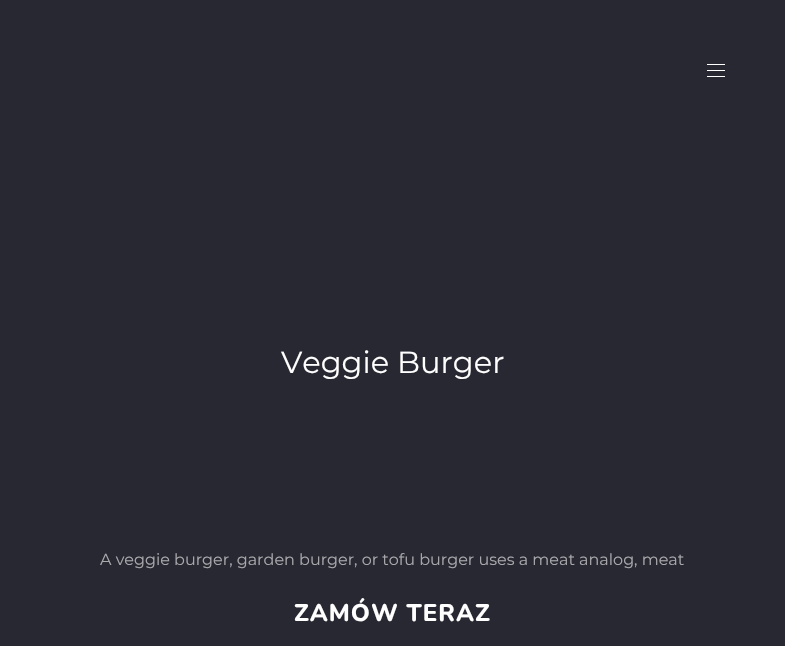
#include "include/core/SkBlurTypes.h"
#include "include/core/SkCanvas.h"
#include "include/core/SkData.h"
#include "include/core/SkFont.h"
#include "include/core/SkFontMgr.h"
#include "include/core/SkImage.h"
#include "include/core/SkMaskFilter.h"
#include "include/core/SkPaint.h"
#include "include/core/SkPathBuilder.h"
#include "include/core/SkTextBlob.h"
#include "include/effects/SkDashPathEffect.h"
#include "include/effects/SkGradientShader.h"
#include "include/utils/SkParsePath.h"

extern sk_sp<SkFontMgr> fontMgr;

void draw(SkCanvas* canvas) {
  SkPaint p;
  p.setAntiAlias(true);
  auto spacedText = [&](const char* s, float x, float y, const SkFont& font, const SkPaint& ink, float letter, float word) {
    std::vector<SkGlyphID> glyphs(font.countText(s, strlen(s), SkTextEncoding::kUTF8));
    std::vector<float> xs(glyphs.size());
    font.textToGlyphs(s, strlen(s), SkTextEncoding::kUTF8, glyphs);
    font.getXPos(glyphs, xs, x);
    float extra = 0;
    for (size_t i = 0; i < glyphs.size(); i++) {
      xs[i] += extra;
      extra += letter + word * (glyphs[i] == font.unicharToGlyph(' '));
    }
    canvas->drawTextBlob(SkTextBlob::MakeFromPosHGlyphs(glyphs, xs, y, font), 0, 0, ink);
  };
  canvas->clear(SkColorSetRGB(40, 40, 50));
  canvas->drawImageRect(SkImages::DeferredFromEncodedData(SkData::MakeFromFileName("images/1.png")), SkRect::MakeLTRB(707, 64, 725, 77), SkSamplingOptions());
  SkFont font1(fontMgr->matchFamilyStyle("Montserrat", SkFontStyle::Normal()), 30.5f);
  font1.setSubpixel(true);
  p.setColor(SK_ColorWHITE);
  canvas->drawString("Veggie Burger", 281, 373, font1, p);
  SkFont font2(fontMgr->matchFamilyStyle("Montserrat", SkFontStyle::Normal()), 16);
  font2.setSubpixel(true);
  p.setColor(SkColorSetRGB(169, 169, 173));
  canvas->drawString("A veggie burger, garden burger, or tofu burger uses a meat analog, meat", 100, 565, font2, p);
  SkFont font3(fontMgr->matchFamilyStyle("Nunito", SkFontStyle(800, SkFontStyle::kNormal_Width, SkFontStyle::kUpright_Slant)), 24);
  font3.setSubpixel(true);
  p.setColor(SK_ColorWHITE);
  spacedText("ZAMÓW TERAZ", 294, 621, font3, p, 1, 0);
}
